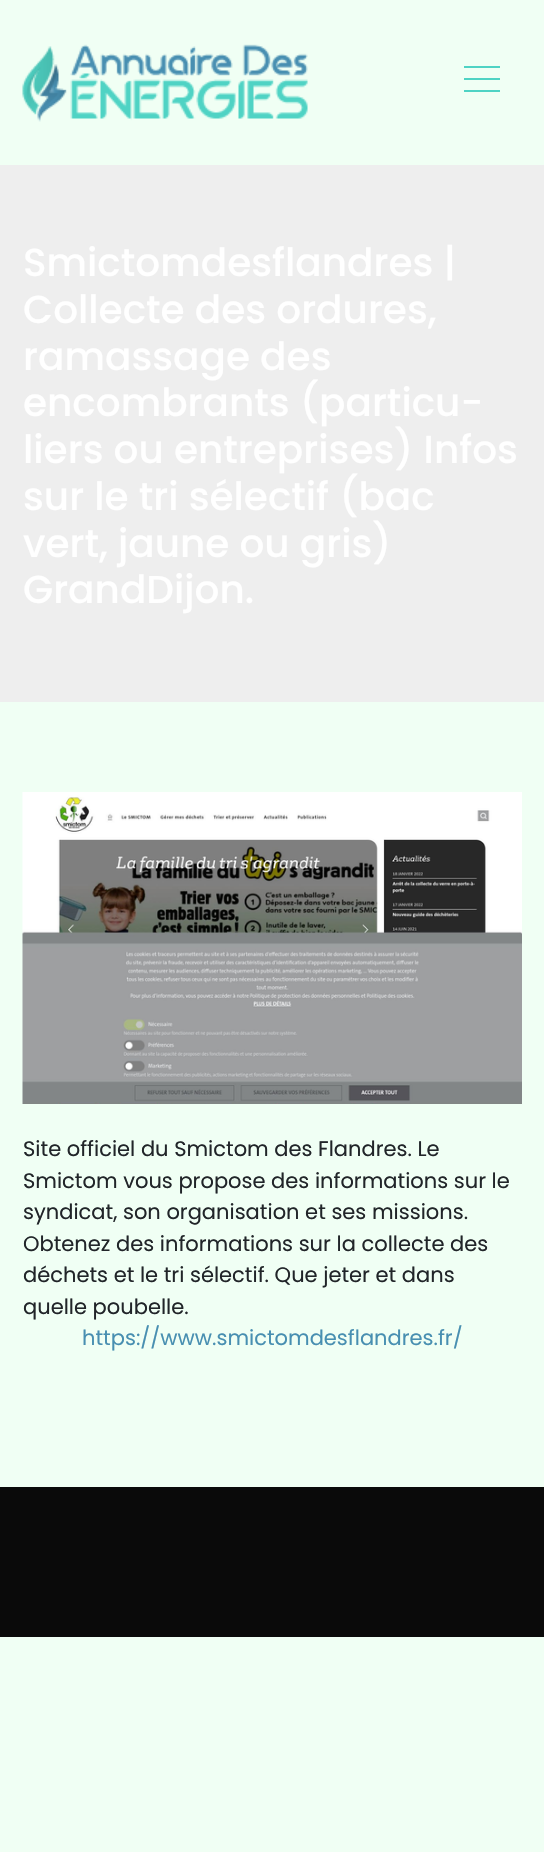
#include "include/core/SkBlurTypes.h"
#include "include/core/SkCanvas.h"
#include "include/core/SkData.h"
#include "include/core/SkFont.h"
#include "include/core/SkFontMgr.h"
#include "include/core/SkImage.h"
#include "include/core/SkMaskFilter.h"
#include "include/core/SkPaint.h"
#include "include/core/SkPathBuilder.h"
#include "include/core/SkTextBlob.h"
#include "include/effects/SkDashPathEffect.h"
#include "include/effects/SkGradientShader.h"
#include "include/utils/SkParsePath.h"

extern sk_sp<SkFontMgr> fontMgr;

void draw(SkCanvas* canvas) {
  SkPaint p;
  p.setAntiAlias(true);
  canvas->clear(SkColorSetRGB(240, 255, 244));
  canvas->drawImageRect(SkImages::DeferredFromEncodedData(SkData::MakeFromFileName("images/1.png")), SkRect::MakeLTRB(22, 44, 308, 122), SkSamplingOptions());
  p.setColor(SkColorSetRGB(79, 211, 196));
  canvas->drawRect(SkRect::MakeLTRB(464, 66, 500, 68), p);
  canvas->drawRect(SkRect::MakeLTRB(464, 78, 500, 80), p);
  canvas->drawRect(SkRect::MakeLTRB(464, 90, 500, 92), p);
  p.setColor(SkColorSetRGB(238, 238, 238));
  canvas->drawRect(SkRect::MakeLTRB(0, 165, 544, 702), p);
  canvas->drawImageRect(SkImages::DeferredFromEncodedData(SkData::MakeFromFileName("images/2.png")), SkRect::MakeLTRB(22, 792, 522, 1104), SkSamplingOptions());
  p.setColor(SkColorSetRGB(10, 10, 10));
  canvas->drawRect(SkRect::MakeLTRB(0, 1487, 544, 1637), p);
  SkFont font1(fontMgr->matchFamilyStyle("Poppins", SkFontStyle(500, SkFontStyle::kNormal_Width, SkFontStyle::kUpright_Slant)), 39);
  font1.setSubpixel(true);
  p.setColor(SK_ColorWHITE);
  canvas->drawString("Smictomdesflandres |", 23, 276, font1, p);
  canvas->drawString("Collecte des ordures,", 23, 323, font1, p);
  canvas->drawString("ramassage des", 23, 370, font1, p);
  canvas->drawString("encombrants (particu-", 23, 416, font1, p);
  canvas->drawString("liers ou entreprises) Infos", 23, 463, font1, p);
  canvas->drawString("sur le tri sélectif (bac", 23, 510, font1, p);
  canvas->drawString("vert, jaune ou gris)", 23, 557, font1, p);
  canvas->drawString("GrandDijon.", 23, 603, font1, p);
  SkFont font2(fontMgr->matchFamilyStyle("Poppins", SkFontStyle::Normal()), 21);
  font2.setSubpixel(true);
  p.setColor(SkColorSetRGB(33, 37, 41));
  canvas->drawString("Site officiel du Smictom des Flandres. Le", 23, 1156, font2, p);
  canvas->drawString("Smictom vous propose des informations sur le", 23, 1188, font2, p);
  canvas->drawString("syndicat, son organisation et ses missions.", 23, 1219, font2, p);
  canvas->drawString("Obtenez des informations sur la collecte des", 23, 1251, font2, p);
  canvas->drawString("déchets et le tri sélectif. Que jeter et dans", 23, 1282, font2, p);
  canvas->drawString("quelle poubelle.", 23, 1314, font2, p);
  p.setColor(SkColorSetRGB(72, 143, 177));
  canvas->drawString("https://www.smictomdesflandres.fr/", 82, 1345, font2, p);
}
